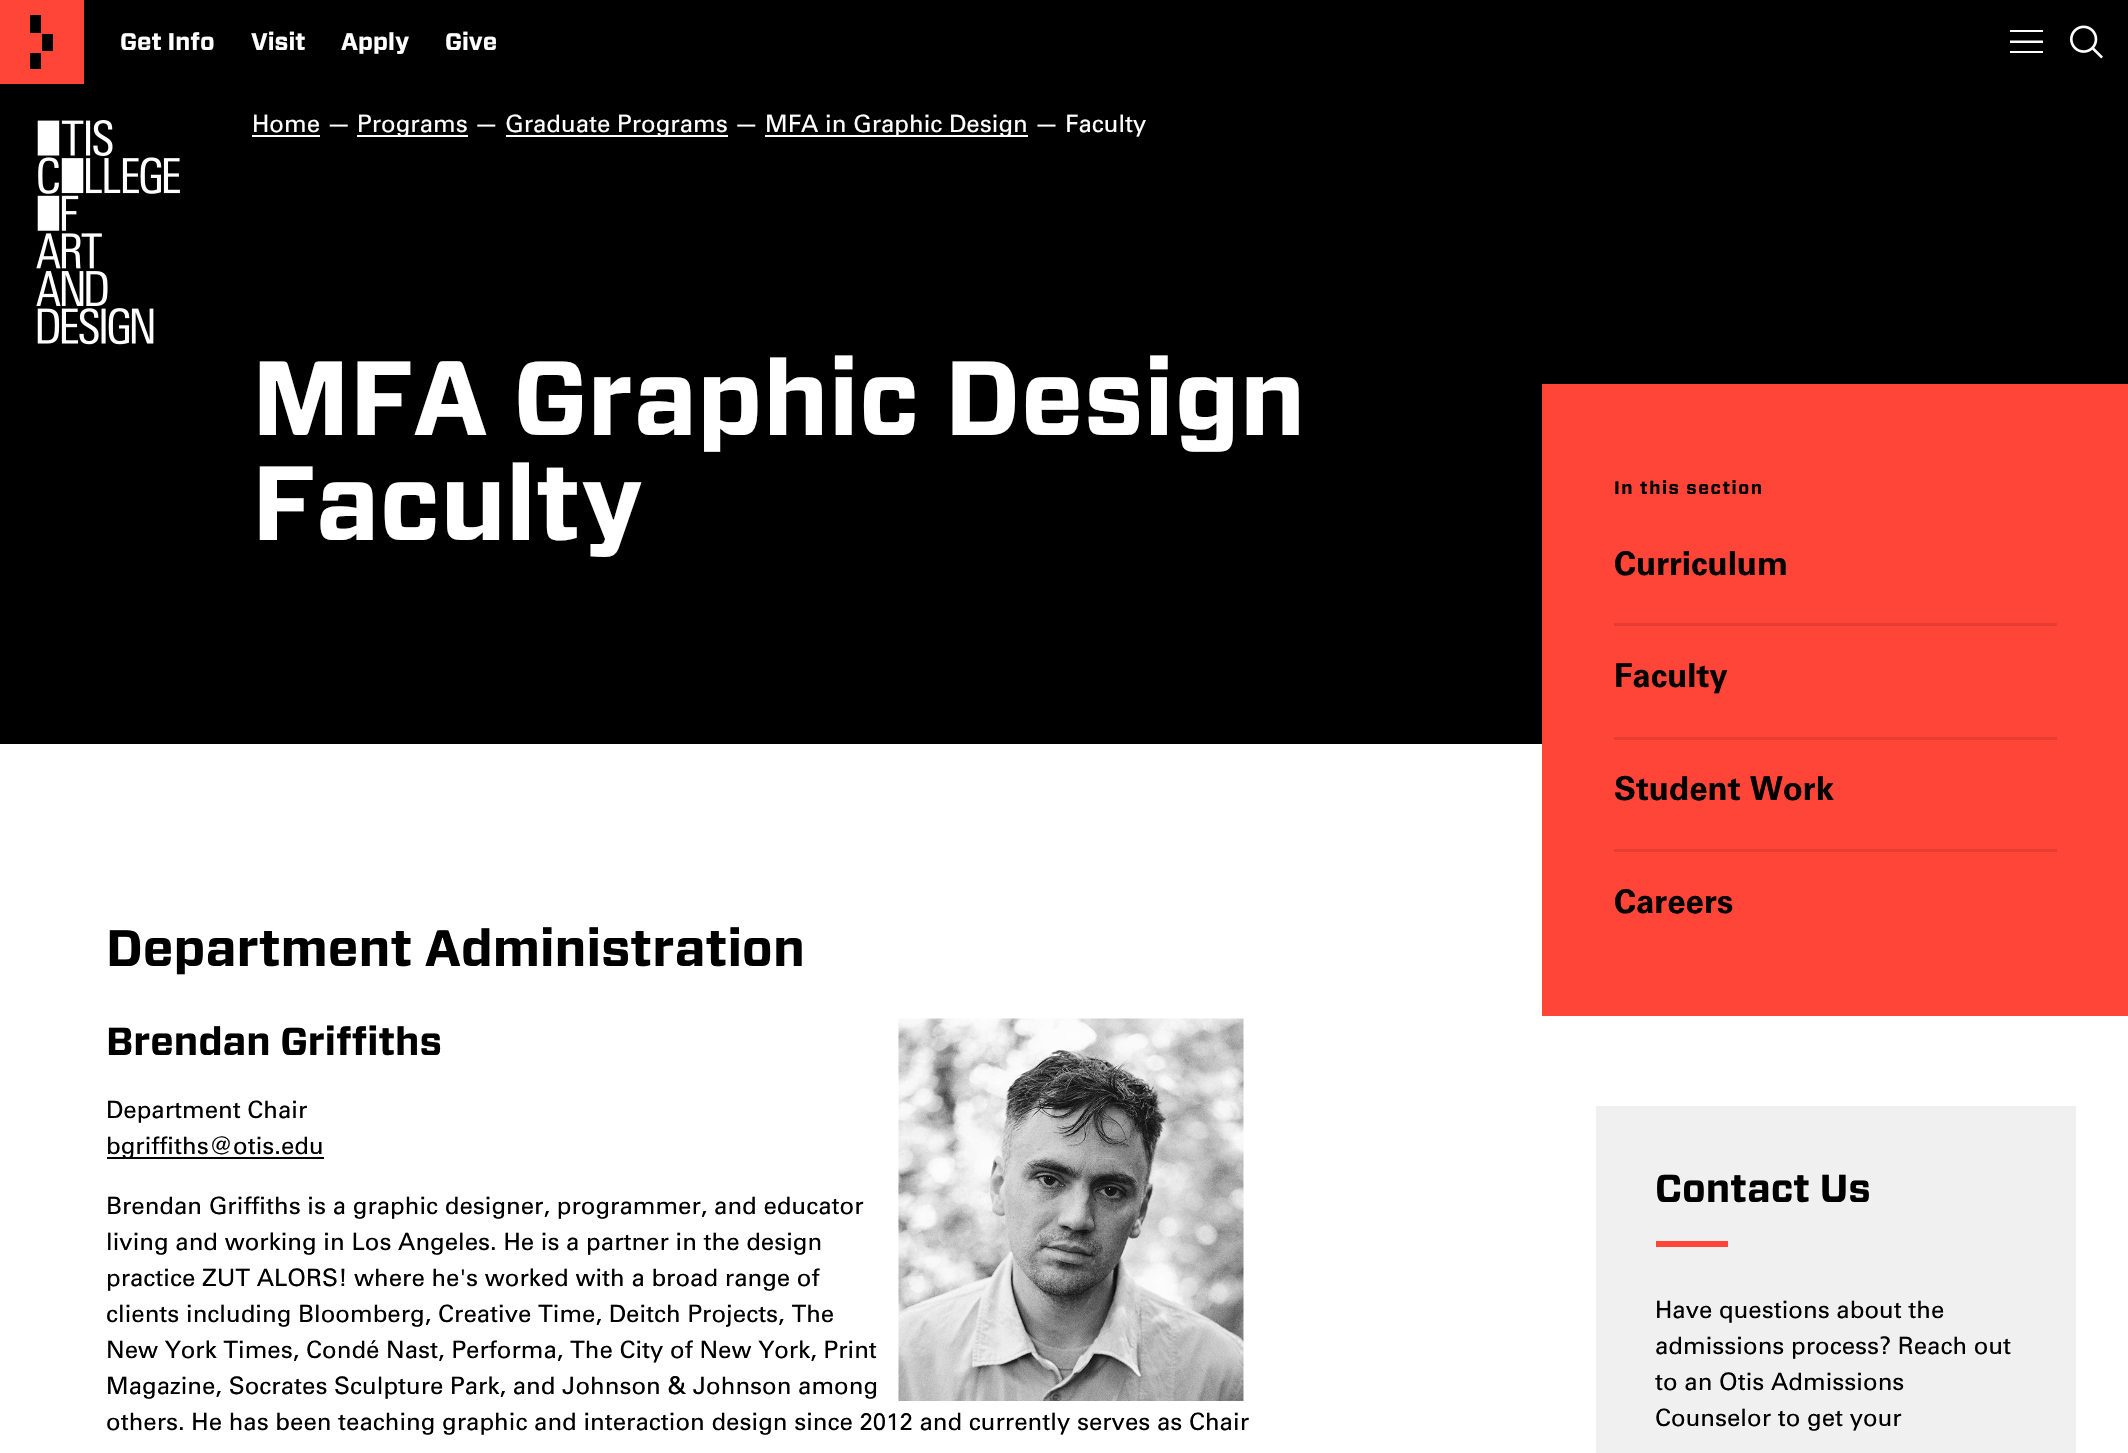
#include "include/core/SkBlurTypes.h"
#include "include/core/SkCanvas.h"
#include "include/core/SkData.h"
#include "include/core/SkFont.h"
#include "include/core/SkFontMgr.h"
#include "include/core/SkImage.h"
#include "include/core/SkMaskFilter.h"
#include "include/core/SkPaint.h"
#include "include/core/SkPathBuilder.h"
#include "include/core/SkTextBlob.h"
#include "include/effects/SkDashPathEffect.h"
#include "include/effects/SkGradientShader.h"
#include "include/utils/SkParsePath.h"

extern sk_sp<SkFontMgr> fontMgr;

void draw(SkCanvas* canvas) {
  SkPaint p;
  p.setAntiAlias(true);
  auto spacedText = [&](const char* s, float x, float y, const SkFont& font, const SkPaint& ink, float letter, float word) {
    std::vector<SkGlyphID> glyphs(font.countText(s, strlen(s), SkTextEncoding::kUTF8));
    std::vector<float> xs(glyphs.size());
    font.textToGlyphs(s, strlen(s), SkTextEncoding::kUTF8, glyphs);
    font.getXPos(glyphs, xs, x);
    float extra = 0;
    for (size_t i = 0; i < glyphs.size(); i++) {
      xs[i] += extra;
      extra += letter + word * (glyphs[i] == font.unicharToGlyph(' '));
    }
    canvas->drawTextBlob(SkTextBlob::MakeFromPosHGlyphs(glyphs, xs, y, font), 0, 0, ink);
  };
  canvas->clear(SK_ColorWHITE);
  p.setColor(SK_ColorBLACK);
  canvas->drawRect(SkRect::MakeLTRB(84, 0, 2128, 84), p);
  p.setColor(SkColorSetRGB(255, 68, 56));
  canvas->drawRect(SkRect::MakeLTRB(0, 0, 84, 84), p);
  canvas->save();
  canvas->clipRect(SkRect::MakeLTRB(30, 15, 54, 69));
  p.setColor(SK_ColorBLACK);
  canvas->drawPath(SkPathBuilder(SkPathFillType::kEvenOdd).moveTo(30, 33).lineTo(41, 33).lineTo(41, 15).lineTo(30, 15).close().moveTo(30, 70).lineTo(41, 70).lineTo(41, 53).lineTo(30, 53).close().moveTo(53, 51).lineTo(42, 51).lineTo(42, 34).lineTo(53, 34).close().detach(), p);
  canvas->restore();
  p.setColor(SK_ColorWHITE);
  canvas->drawPath(SkPathBuilder(SkPathFillType::kEvenOdd).moveTo(2010, 30).lineTo(2043, 30).lineTo(2043, 32).lineTo(2010, 32).close().moveTo(2010, 40.5f).lineTo(2043, 40.5f).lineTo(2043, 43).lineTo(2010, 43).close().moveTo(2043, 51).lineTo(2010, 51).lineTo(2010, 53).lineTo(2043, 53).close().detach(), p);
  canvas->drawImageRect(SkImages::DeferredFromEncodedData(SkData::MakeFromFileName("images/1.png")), SkRect::MakeLTRB(2070, 25, 2103, 59), SkSamplingOptions());
  p.setColor(SK_ColorBLACK);
  canvas->drawRect(SkRect::MakeLTRB(0, 84, 2128, 168), p);
  canvas->drawRect(SkRect::MakeLTRB(0, 168, 2128, 744), p);
  canvas->drawImageRect(SkImages::DeferredFromEncodedData(SkData::MakeFromFileName("images/2.png")), SkRect::MakeLTRB(36, 120, 180, 345), SkSamplingOptions());
  p.setColor(SK_ColorWHITE);
  canvas->drawRect(SkRect::MakeLTRB(252, 135, 320, 137), p);
  canvas->drawRect(SkRect::MakeLTRB(357, 135, 468, 137), p);
  canvas->drawRect(SkRect::MakeLTRB(506, 135, 728, 137), p);
  canvas->drawRect(SkRect::MakeLTRB(765, 135, 1028, 137), p);
  p.setColor(SkColorSetRGB(255, 68, 56));
  canvas->drawRect(SkRect::MakeLTRB(1542, 384, 2128, 1016), p);
  p.setColor(SkColorSetRGB(230, 61, 50));
  canvas->drawRect(SkRect::MakeLTRB(1614, 623, 2057, 626), p);
  canvas->drawRect(SkRect::MakeLTRB(1614, 737, 2057, 740), p);
  canvas->drawRect(SkRect::MakeLTRB(1614, 849, 2057, 852), p);
  canvas->drawImageRect(SkImages::DeferredFromEncodedData(SkData::MakeFromFileName("images/3.png")), SkRect::MakeLTRB(898, 1018, 1244, 1401), SkSamplingOptions());
  p.setColor(SK_ColorBLACK);
  canvas->drawRect(SkRect::MakeLTRB(107, 1157, 324, 1159), p);
  p.setColor(SkColorSetRGB(240, 240, 240));
  canvas->drawRect(SkRect::MakeLTRB(1596, 1106, 2076, 1453), p);
  p.setColor(SkColorSetRGB(255, 68, 56));
  canvas->drawRect(SkRect::MakeLTRB(1656, 1241, 1728, 1247), p);
  SkFont font1(fontMgr->matchFamilyStyle("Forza", SkFontStyle::Bold()), 24);
  font1.setSubpixel(true);
  p.setColor(SK_ColorWHITE);
  canvas->drawString("Get Info", 120, 50, font1, p);
  canvas->drawString("Visit", 251, 50, font1, p);
  canvas->drawString("Apply", 341, 50, font1, p);
  canvas->drawString("Give", 445, 50, font1, p);
  SkFont font2(fontMgr->matchFamilyStyle("Univers", SkFontStyle::Normal()), 24);
  font2.setSubpixel(true);
  canvas->drawString("Home —", 252, 132, font2, p);
  canvas->drawString("Programs —", 357, 132, font2, p);
  canvas->drawString("Graduate Programs —", 505, 132, font2, p);
  canvas->drawString("MFA in Graphic Design — Faculty", 765, 132, font2, p);
  SkFont font3(fontMgr->matchFamilyStyle("Forza", SkFontStyle::Bold()), 105);
  font3.setSubpixel(true);
  canvas->drawString("MFA Graphic Design", 252, 435, font3, p);
  canvas->drawString("Faculty", 252, 540, font3, p);
  SkFont font4(fontMgr->matchFamilyStyle("Forza", SkFontStyle::Bold()), 18);
  font4.setSubpixel(true);
  p.setColor(SK_ColorBLACK);
  spacedText("In this section", 1614, 494, font4, p, 1.5f, 0);
  SkFont font5(fontMgr->matchFamilyStyle("Univers", SkFontStyle::Bold()), 33);
  font5.setSubpixel(true);
  canvas->drawString("Curriculum", 1614, 575, font5, p);
  canvas->drawString("Faculty", 1614, 687, font5, p);
  canvas->drawString("Student Work", 1614, 800, font5, p);
  canvas->drawString("Careers", 1614, 913, font5, p);
  SkFont font6(fontMgr->matchFamilyStyle("Forza", SkFontStyle::Bold()), 51);
  font6.setSubpixel(true);
  canvas->drawString("Department Administration", 106, 966, font6, p);
  SkFont font7(fontMgr->matchFamilyStyle("Forza", SkFontStyle::Bold()), 39);
  font7.setSubpixel(true);
  canvas->drawString("Brendan Griffiths", 106, 1055, font7, p);
  canvas->drawString("Department Chair", 106, 1118, font2, p);
  canvas->drawString("bgriffiths@otis.edu", 106, 1154, font2, p);
  canvas->drawString("Brendan Griffiths is a graphic designer, programmer, and educator", 106, 1214, font2, p);
  canvas->drawString("living and working in Los Angeles. He is a partner in the design", 106, 1250, font2, p);
  canvas->drawString("practice ZUT ALORS! where he's worked with a broad range of", 106, 1286, font2, p);
  canvas->drawString("clients including Bloomberg, Creative Time, Deitch Projects, The", 106, 1322, font2, p);
  canvas->drawString("New York Times, Condé Nast, Performa, The City of New York, Print", 106, 1358, font2, p);
  canvas->drawString("Magazine, Socrates Sculpture Park, and Johnson & Johnson among", 106, 1394, font2, p);
  canvas->drawString("others. He has been teaching graphic and interaction design since 2012 and currently serves as Chair", 106, 1430, font2, p);
  canvas->drawString("Contact Us", 1655, 1202, font7, p);
  canvas->drawString("Have questions about the", 1655, 1318, font2, p);
  canvas->drawString("admissions process? Reach out", 1655, 1354, font2, p);
  canvas->drawString("to an Otis Admissions", 1655, 1390, font2, p);
  canvas->drawString("Counselor to get your", 1655, 1426, font2, p);
}
